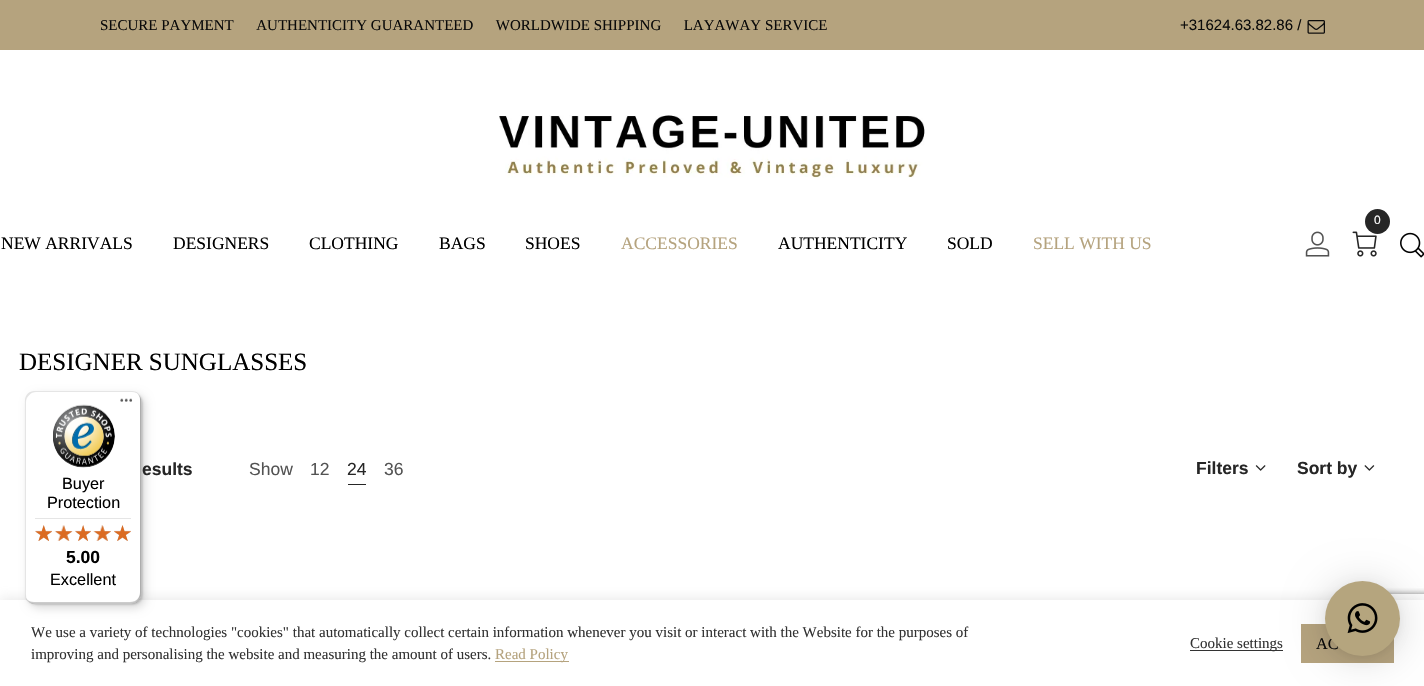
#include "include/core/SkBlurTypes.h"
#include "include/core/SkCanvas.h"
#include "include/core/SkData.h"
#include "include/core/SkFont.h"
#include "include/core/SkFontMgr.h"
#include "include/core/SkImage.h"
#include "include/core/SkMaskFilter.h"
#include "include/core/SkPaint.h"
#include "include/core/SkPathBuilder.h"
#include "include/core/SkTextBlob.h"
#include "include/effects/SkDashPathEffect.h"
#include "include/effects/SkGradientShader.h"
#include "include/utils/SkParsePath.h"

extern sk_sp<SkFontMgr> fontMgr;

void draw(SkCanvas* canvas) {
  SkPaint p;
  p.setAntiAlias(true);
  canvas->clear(SK_ColorWHITE);
  p.setColor(SkColorSetRGB(181, 163, 126));
  canvas->drawRect(SkRect::MakeLTRB(0, 0, 1424, 50), p);
  canvas->drawImageRect(SkImages::DeferredFromEncodedData(SkData::MakeFromFileName("images/1.png")), SkRect::MakeLTRB(1307, 20, 1325, 34), SkSamplingOptions());
  canvas->drawImageRect(SkImages::DeferredFromEncodedData(SkData::MakeFromFileName("images/2.png")), SkRect::MakeLTRB(499, 115, 925, 178), SkSamplingOptions());
  canvas->drawImageRect(SkImages::DeferredFromEncodedData(SkData::MakeFromFileName("images/3.png")), SkRect::MakeLTRB(1352, 231, 1377, 257), SkSamplingOptions());
  p.setColor(SkColorSetRGB(38, 38, 38));
  canvas->drawCircle(1377.5f, 221.5f, 12.5f, p);
  canvas->drawImageRect(SkImages::DeferredFromEncodedData(SkData::MakeFromFileName("images/4.png")), SkRect::MakeLTRB(1305, 231, 1330, 257), SkSamplingOptions());
  canvas->drawImageRect(SkImages::DeferredFromEncodedData(SkData::MakeFromFileName("images/5.png")), SkRect::MakeLTRB(1400, 232, 1424, 258), SkSamplingOptions());
  canvas->drawRect(SkRect::MakeLTRB(348, 484, 366, 485), p);
  canvas->drawImageRect(SkImages::DeferredFromEncodedData(SkData::MakeFromFileName("images/6.png")), SkRect::MakeLTRB(1255, 465, 1266, 471), SkSamplingOptions());
  canvas->drawImageRect(SkImages::DeferredFromEncodedData(SkData::MakeFromFileName("images/7.png")), SkRect::MakeLTRB(1364, 465, 1375, 471), SkSamplingOptions());
  canvas->save();
  canvas->clipRect(SkRect::MakeLTRB(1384, 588, 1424, 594));
  p.setColor(SkColorSetRGB(128, 128, 128));
  p.setMaskFilter(SkMaskFilter::MakeBlur(kNormal_SkBlurStyle, 3));
  canvas->drawRoundRect(SkRect::MakeLTRB(1338, 594, 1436, 669), 2.5f, 2.5f, p);
  p.setMaskFilter(nullptr);
  canvas->restore();
  p.setColor(SK_ColorWHITE);
  canvas->drawRect(SkRect::MakeLTRB(1332, 588, 1341, 597), p);
  p.setColor(SkColorSetARGB(77, 172, 171, 171));
  p.setMaskFilter(SkMaskFilter::MakeBlur(kNormal_SkBlurStyle, 6));
  canvas->drawRect(SkRect::MakeLTRB(0, 599, 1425, 685), p);
  p.setMaskFilter(nullptr);
  p.setColor(SK_ColorWHITE);
  canvas->drawRect(SkRect::MakeLTRB(0, 600, 1424, 686), p);
  p.setColor(SkColorSetARGB(38, 0, 0, 0));
  p.setMaskFilter(SkMaskFilter::MakeBlur(kNormal_SkBlurStyle, 5));
  canvas->drawRoundRect(SkRect::MakeLTRB(29, 395, 145, 608), 10, 10, p);
  p.setMaskFilter(nullptr);
  p.setMaskFilter(SkMaskFilter::MakeBlur(kNormal_SkBlurStyle, 1));
  canvas->drawRoundRect(SkRect::MakeLTRB(26, 393, 143, 605), 10, 10, p);
  p.setMaskFilter(nullptr);
  p.setColor(SK_ColorWHITE);
  canvas->drawRoundRect(SkRect::MakeLTRB(25, 391, 141, 604), 10, 10, p);
  p.setColor(SkColorSetARGB(26, 0, 0, 0));
  canvas->drawPath(SkPathBuilder().moveTo(36, 392).lineTo(132, 392).cubicTo(135, 392, 137, 393, 139, 394).cubicTo(137, 392, 134, 391, 131, 391).lineTo(35, 391).cubicTo(29, 391, 25, 395, 25, 401).lineTo(25, 594).cubicTo(25, 597, 26, 600, 28, 602).cubicTo(27, 600, 26, 598, 26, 595).lineTo(26, 402).cubicTo(26, 397, 31, 392, 36, 392).close().detach(), p);
  p.setColor(SkColorSetARGB(51, 0, 0, 0));
  canvas->drawPath(SkPathBuilder().moveTo(26, 598).cubicTo(28, 602, 31, 604, 35, 604).lineTo(131, 604).cubicTo(137, 604, 141, 600, 141, 594).lineTo(141, 401).cubicTo(141, 399, 140, 396, 139, 395).cubicTo(140, 396, 140, 398, 140, 400).lineTo(140, 592).cubicTo(140, 598, 136, 602, 130, 602).lineTo(34, 602).cubicTo(31, 602, 28, 601, 26, 598).close().detach(), p);
  p.setColor(SkColorSetARGB(51, 50, 50, 50));
  canvas->drawPath(SkPathBuilder().moveTo(27, 600).cubicTo(29, 603, 32, 604, 35, 604).lineTo(131, 604).cubicTo(137, 604, 141, 600, 141, 594).lineTo(141, 401).cubicTo(141, 398, 140, 395, 137, 393).cubicTo(139, 395, 140, 398, 140, 400).lineTo(140, 593).cubicTo(140, 599, 136, 603, 130, 603).lineTo(34, 603).cubicTo(32, 603, 29, 602, 27, 600).close().detach(), p);
  canvas->drawImageRect(SkImages::DeferredFromEncodedData(SkData::MakeFromFileName("images/8.png")), SkRect::MakeLTRB(120, 398, 133, 402), SkSamplingOptions());
  p.setColor(SkColorSetARGB(77, 255, 255, 255));
  canvas->drawPath(SkPathBuilder(SkPathFillType::kEvenOdd).moveTo(27, 600).cubicTo(29, 603, 32, 604, 35, 604).lineTo(131, 604).cubicTo(137, 604, 141, 600, 141, 594).lineTo(141, 593).cubicTo(141, 599, 136, 603, 131, 603).lineTo(34, 603).cubicTo(32, 603, 29, 602, 27, 600).close().moveTo(139, 395).cubicTo(137, 392, 134, 391, 131, 391).cubicTo(134, 391, 137, 392, 139, 395).close().detach(), p);
  canvas->drawImageRect(SkImages::DeferredFromEncodedData(SkData::MakeFromFileName("images/9.png")), SkRect::MakeLTRB(53, 404, 115, 468), SkSamplingOptions());
  p.setColor(SkColorSetRGB(229, 229, 229));
  canvas->drawRect(SkRect::MakeLTRB(35, 518, 131, 519), p);
  canvas->drawImageRect(SkImages::DeferredFromEncodedData(SkData::MakeFromFileName("images/10.png")), SkRect::MakeLTRB(35, 525, 52, 541), SkSamplingOptions());
  canvas->drawImageRect(SkImages::DeferredFromEncodedData(SkData::MakeFromFileName("images/11.png")), SkRect::MakeLTRB(55, 525, 72, 541), SkSamplingOptions());
  canvas->drawImageRect(SkImages::DeferredFromEncodedData(SkData::MakeFromFileName("images/12.png")), SkRect::MakeLTRB(75, 525, 91, 541), SkSamplingOptions());
  canvas->drawImageRect(SkImages::DeferredFromEncodedData(SkData::MakeFromFileName("images/13.png")), SkRect::MakeLTRB(93, 525, 111, 541), SkSamplingOptions());
  canvas->drawImageRect(SkImages::DeferredFromEncodedData(SkData::MakeFromFileName("images/14.png")), SkRect::MakeLTRB(114, 525, 131, 541), SkSamplingOptions());
  canvas->drawImageRect(SkImages::DeferredFromEncodedData(SkData::MakeFromFileName("images/15.png")), SkRect::MakeLTRB(35, 525, 52, 541), SkSamplingOptions());
  canvas->drawImageRect(SkImages::DeferredFromEncodedData(SkData::MakeFromFileName("images/16.png")), SkRect::MakeLTRB(54, 525, 73, 541), SkSamplingOptions());
  canvas->drawImageRect(SkImages::DeferredFromEncodedData(SkData::MakeFromFileName("images/17.png")), SkRect::MakeLTRB(75, 525, 91, 541), SkSamplingOptions());
  canvas->drawImageRect(SkImages::DeferredFromEncodedData(SkData::MakeFromFileName("images/18.png")), SkRect::MakeLTRB(93, 525, 111, 541), SkSamplingOptions());
  canvas->drawImageRect(SkImages::DeferredFromEncodedData(SkData::MakeFromFileName("images/19.png")), SkRect::MakeLTRB(114, 525, 131, 541), SkSamplingOptions());
  p.setColor(SkColorSetRGB(51, 51, 51));
  canvas->drawRect(SkRect::MakeLTRB(1190, 650, 1283, 651), p);
  p.setColor(SkColorSetRGB(181, 163, 126));
  canvas->drawRect(SkRect::MakeLTRB(1301, 624, 1394, 663), p);
  p.setColor(SkColorSetARGB(41, 0, 0, 0));
  p.setMaskFilter(SkMaskFilter::MakeBlur(kNormal_SkBlurStyle, 20));
  canvas->drawRoundRect(SkRect::MakeLTRB(1325, 584, 1400, 659), 37.5f, 37.5f, p);
  p.setMaskFilter(nullptr);
  p.setColor(SkColorSetARGB(15, 0, 0, 0));
  p.setMaskFilter(SkMaskFilter::MakeBlur(kNormal_SkBlurStyle, 4));
  canvas->drawRoundRect(SkRect::MakeLTRB(1325, 583, 1400, 658), 37.5f, 37.5f, p);
  p.setMaskFilter(nullptr);
  p.setColor(SkColorSetRGB(181, 163, 126));
  canvas->drawRect(SkRect::MakeLTRB(495, 661, 569, 662), p);
  SkFont font1(fontMgr->matchFamilyStyle("Liberation Serif", SkFontStyle::Normal()), 15);
  font1.setSubpixel(true);
  p.setColor(SkColorSetRGB(10, 10, 10));
  canvas->drawString("SECURE PAYMENT      AUTHENTICITY GUARANTEED      WORLDWIDE SHIPPING      LAYAWAY SERVICE", 100, 30, font1, p);
  SkFont font2(fontMgr->matchFamilyStyle("Liberation Sans", SkFontStyle::Normal()), 15);
  font2.setSubpixel(true);
  canvas->drawString("+31624.63.82.86 /", 1180, 30, font2, p);
  SkFont font3(fontMgr->matchFamilyStyle("Liberation Sans", SkFontStyle::Normal()), 12);
  font3.setSubpixel(true);
  p.setColor(SK_ColorWHITE);
  canvas->drawString("0", 1374, 224, font3, p);
  SkFont font4(fontMgr->matchFamilyStyle("Liberation Serif", SkFontStyle::Normal()), 17.5f);
  font4.setSubpixel(true);
  p.setColor(SK_ColorBLACK);
  canvas->drawString("NEW ARRIVALS", 1, 249, font4, p);
  canvas->drawString("DESIGNERS", 173, 249, font4, p);
  canvas->drawString("CLOTHING", 309, 249, font4, p);
  canvas->drawString("BAGS", 439, 249, font4, p);
  canvas->drawString("SHOES", 525, 249, font4, p);
  p.setColor(SkColorSetRGB(181, 163, 126));
  canvas->drawString("ACCESSORIES", 621, 249, font4, p);
  p.setColor(SK_ColorBLACK);
  canvas->drawString("AUTHENTICITY", 778, 249, font4, p);
  canvas->drawString("SOLD", 947, 249, font4, p);
  p.setColor(SkColorSetRGB(181, 163, 126));
  canvas->drawString("SELL WITH US", 1033, 249, font4, p);
  SkFont font5(fontMgr->matchFamilyStyle("Liberation Serif", SkFontStyle::Normal()), 25);
  font5.setSubpixel(true);
  p.setColor(SK_ColorBLACK);
  canvas->drawString("DESIGNER SUNGLASSES", 19, 370, font5, p);
  SkFont font6(fontMgr->matchFamilyStyle("Liberation Sans", SkFontStyle::Bold()), 17.5f);
  font6.setSubpixel(true);
  p.setColor(SkColorSetRGB(38, 38, 38));
  canvas->drawString("esults", 142, 475, font6, p);
  SkFont font7(fontMgr->matchFamilyStyle("Liberation Sans", SkFontStyle::Normal()), 17.5f);
  font7.setSubpixel(true);
  p.setColor(SkColorSetRGB(83, 83, 83));
  canvas->drawString("Show", 249, 475, font7, p);
  canvas->drawString("12", 310, 475, font7, p);
  p.setColor(SkColorSetRGB(38, 38, 38));
  canvas->drawString("24", 347, 475, font7, p);
  p.setColor(SkColorSetRGB(83, 83, 83));
  canvas->drawString("36", 384, 475, font7, p);
  p.setColor(SkColorSetRGB(38, 38, 38));
  canvas->drawString("Filters", 1196, 474, font6, p);
  canvas->drawString("Sort by", 1297, 474, font6, p);
  SkFont font8(fontMgr->matchFamilyStyle("Liberation Sans", SkFontStyle::Normal()), 16.25f);
  font8.setSubpixel(true);
  p.setColor(SK_ColorBLACK);
  canvas->drawString("Buyer", 62, 489, font8, p);
  canvas->drawString("Protection", 47, 508, font8, p);
  canvas->drawString("5.00", 66, 563, font6, p);
  canvas->drawString("Excellent", 50, 585, font8, p);
  p.setColor(SkColorSetRGB(51, 51, 51));
  canvas->drawString("We use a variety of technologies \"cookies\" that automatically collect certain information whenever you visit or interact with the Website for the purposes of", 31, 637, font1, p);
  canvas->drawString("improving and personalising the website and measuring the amount of users.", 31, 659, font1, p);
  p.setColor(SkColorSetRGB(181, 163, 126));
  canvas->drawString("Read Policy", 495, 659, font1, p);
  p.setColor(SkColorSetRGB(51, 51, 51));
  canvas->drawString("Cookie settings", 1190, 648, font1, p);
  SkFont font9(fontMgr->matchFamilyStyle("Liberation Serif", SkFontStyle::Normal()), 16.25f);
  font9.setSubpixel(true);
  p.setColor(SkColorSetRGB(10, 10, 10));
  canvas->drawString("AC", 1316, 649, font9, p);
  p.setColor(SkColorSetRGB(181, 165, 126));
  canvas->drawCircle(1362.5f, 618.5f, 37.5f, p);
  canvas->drawImageRect(SkImages::DeferredFromEncodedData(SkData::MakeFromFileName("images/20.png")), SkRect::MakeLTRB(1347, 603, 1378, 634), SkSamplingOptions());
}
